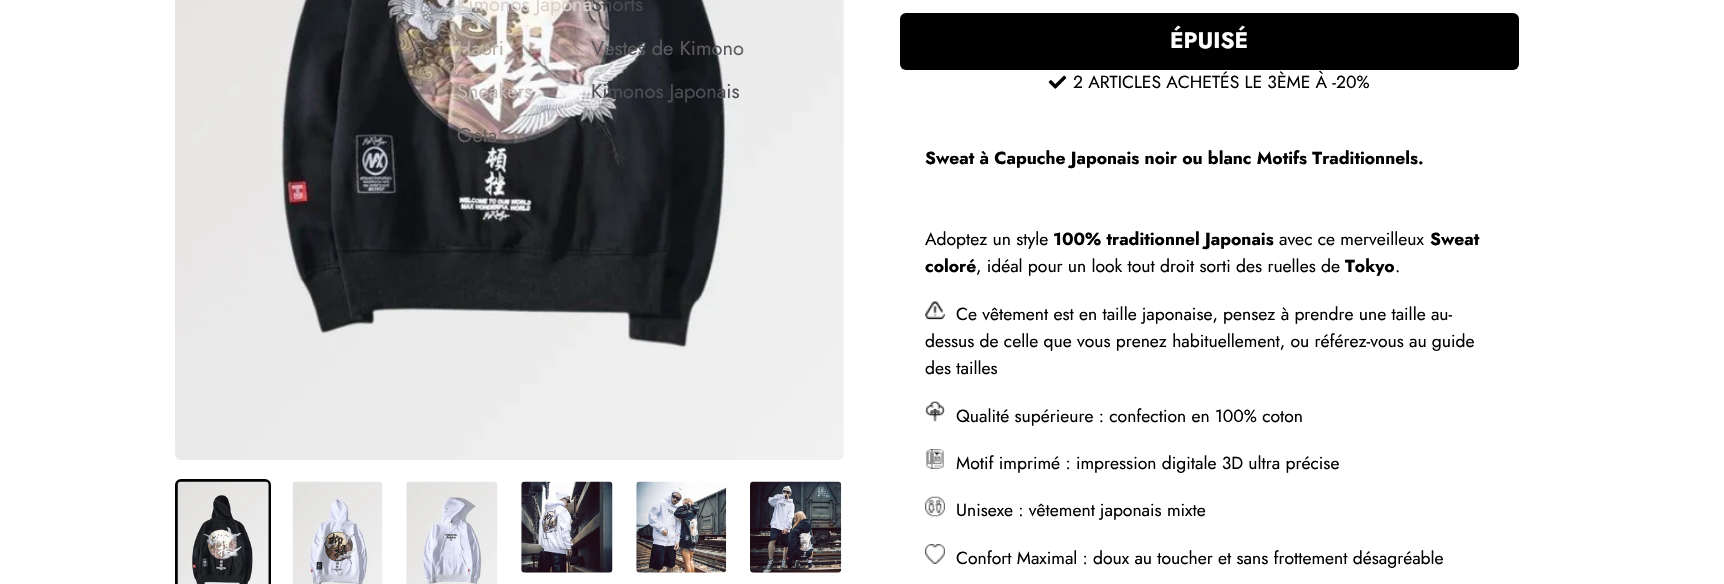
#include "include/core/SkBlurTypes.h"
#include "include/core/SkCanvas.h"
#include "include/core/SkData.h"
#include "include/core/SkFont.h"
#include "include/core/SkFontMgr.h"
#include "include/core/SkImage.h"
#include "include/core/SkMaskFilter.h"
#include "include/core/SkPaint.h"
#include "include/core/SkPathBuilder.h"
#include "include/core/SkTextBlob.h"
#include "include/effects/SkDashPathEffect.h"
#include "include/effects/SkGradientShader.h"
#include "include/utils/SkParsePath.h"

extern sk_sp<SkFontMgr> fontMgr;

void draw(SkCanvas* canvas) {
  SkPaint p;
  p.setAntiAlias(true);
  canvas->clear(SK_ColorWHITE);
  canvas->drawImageRect(SkImages::DeferredFromEncodedData(SkData::MakeFromFileName("images/1.png")), SkRect::MakeLTRB(175, 0, 844, 460), SkSamplingOptions());
  p.setStyle(SkPaint::kStroke_Style);
  p.setStrokeWidth(3);
  p.setColor(SK_ColorBLACK);
  canvas->drawRoundRect(SkRect::MakeLTRB(176.5f, 480.5f, 269.5f, 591.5f), 4.5f, 4.5f, p);
  canvas->drawImageRect(SkImages::DeferredFromEncodedData(SkData::MakeFromFileName("images/2.png")), SkRect::MakeLTRB(177, 481, 269, 584), SkSamplingOptions());
  canvas->drawImageRect(SkImages::DeferredFromEncodedData(SkData::MakeFromFileName("images/3.png")), SkRect::MakeLTRB(292, 481, 383, 584), SkSamplingOptions());
  canvas->drawImageRect(SkImages::DeferredFromEncodedData(SkData::MakeFromFileName("images/4.png")), SkRect::MakeLTRB(406, 481, 498, 584), SkSamplingOptions());
  canvas->drawImageRect(SkImages::DeferredFromEncodedData(SkData::MakeFromFileName("images/5.png")), SkRect::MakeLTRB(521, 481, 613, 573), SkSamplingOptions());
  canvas->drawImageRect(SkImages::DeferredFromEncodedData(SkData::MakeFromFileName("images/6.png")), SkRect::MakeLTRB(636, 481, 727, 573), SkSamplingOptions());
  canvas->drawImageRect(SkImages::DeferredFromEncodedData(SkData::MakeFromFileName("images/7.png")), SkRect::MakeLTRB(750, 481, 842, 573), SkSamplingOptions());
  p.setStyle(SkPaint::kFill_Style);
  canvas->drawRoundRect(SkRect::MakeLTRB(900, 13, 1519, 70), 6, 6, p);
  canvas->drawImageRect(SkImages::DeferredFromEncodedData(SkData::MakeFromFileName("images/8.png")), SkRect::MakeLTRB(1048, 75, 1067, 89), SkSamplingOptions());
  canvas->drawImageRect(SkImages::DeferredFromEncodedData(SkData::MakeFromFileName("images/9.png")), SkRect::MakeLTRB(925, 301, 945, 320), SkSamplingOptions());
  canvas->drawImageRect(SkImages::DeferredFromEncodedData(SkData::MakeFromFileName("images/10.png")), SkRect::MakeLTRB(925, 401, 945, 422), SkSamplingOptions());
  canvas->drawImageRect(SkImages::DeferredFromEncodedData(SkData::MakeFromFileName("images/11.png")), SkRect::MakeLTRB(926, 449, 944, 469), SkSamplingOptions());
  canvas->drawImageRect(SkImages::DeferredFromEncodedData(SkData::MakeFromFileName("images/12.png")), SkRect::MakeLTRB(925, 496, 945, 517), SkSamplingOptions());
  canvas->drawImageRect(SkImages::DeferredFromEncodedData(SkData::MakeFromFileName("images/13.png")), SkRect::MakeLTRB(925, 544, 945, 564), SkSamplingOptions());
  SkFont font1(fontMgr->matchFamilyStyle("Jost", SkFontStyle::Normal()), 20);
  font1.setSubpixel(true);
  p.setColor(SkColorSetRGB(215, 209, 205));
  canvas->drawString("Kimonos Japonais", 457, 11, font1, p);
  p.setColor(SkColorSetRGB(185, 174, 164));
  canvas->drawString("Haori", 457, 55, font1, p);
  p.setColor(SkColorSetRGB(196, 185, 183));
  canvas->drawString("Sneakers", 457, 98, font1, p);
  p.setColor(SkColorSetRGB(104, 95, 95));
  canvas->drawString("Geta", 457, 142, font1, p);
  p.setColor(SkColorSetRGB(73, 73, 78));
  canvas->drawString("Shorts", 591, 11, font1, p);
  p.setColor(SkColorSetRGB(91, 91, 95));
  canvas->drawString("Vestes de Kimono", 591, 55, font1, p);
  p.setColor(SkColorSetRGB(77, 79, 84));
  canvas->drawString("Kimonos Japonais", 591, 98, font1, p);
  SkFont font2(fontMgr->matchFamilyStyle("Jost", SkFontStyle::Bold()), 22.5f);
  font2.setSubpixel(true);
  p.setColor(SK_ColorWHITE);
  canvas->drawString("ÉPUISÉ", 1170, 48, font2, p);
  SkFont font3(fontMgr->matchFamilyStyle("Jost", SkFontStyle::Normal()), 17.5f);
  font3.setSubpixel(true);
  p.setColor(SK_ColorBLACK);
  canvas->drawString("2 ARTICLES ACHETÉS LE 3ÈME À -20%", 1073, 88, font3, p);
  SkFont font4(fontMgr->matchFamilyStyle("Jost", SkFontStyle::Bold()), 17.5f);
  font4.setSubpixel(true);
  canvas->drawString("Sweat à Capuche Japonais noir ou blanc Motifs Traditionnels.", 925, 164, font4, p);
  canvas->drawString("Adoptez un style", 925, 245, font3, p);
  canvas->drawString("100% traditionnel Japonais", 1053, 245, font4, p);
  canvas->drawString("avec ce merveilleux", 1279, 245, font3, p);
  canvas->drawString("Sweat", 1430, 245, font4, p);
  canvas->drawString("coloré", 925, 272, font4, p);
  canvas->drawString(", idéal pour un look tout droit sorti des ruelles de", 976, 272, font3, p);
  canvas->drawString("Tokyo", 1345, 272, font4, p);
  canvas->drawString(".", 1395, 272, font3, p);
  canvas->drawString("Ce vêtement est en taille japonaise, pensez à prendre une taille au-", 956, 320, font3, p);
  canvas->drawString("dessus de celle que vous prenez habituellement, ou référez-vous au guide", 925, 347, font3, p);
  canvas->drawString("des tailles", 925, 374, font3, p);
  canvas->drawString("Qualité supérieure : confection en 100% coton", 956, 422, font3, p);
  canvas->drawString("Motif imprimé : impression digitale 3D ultra précise", 956, 469, font3, p);
  canvas->drawString("Unisexe : vêtement japonais mixte", 956, 516, font3, p);
  canvas->drawString("Confort Maximal : doux au toucher et sans frottement désagréable", 956, 564, font3, p);
}
